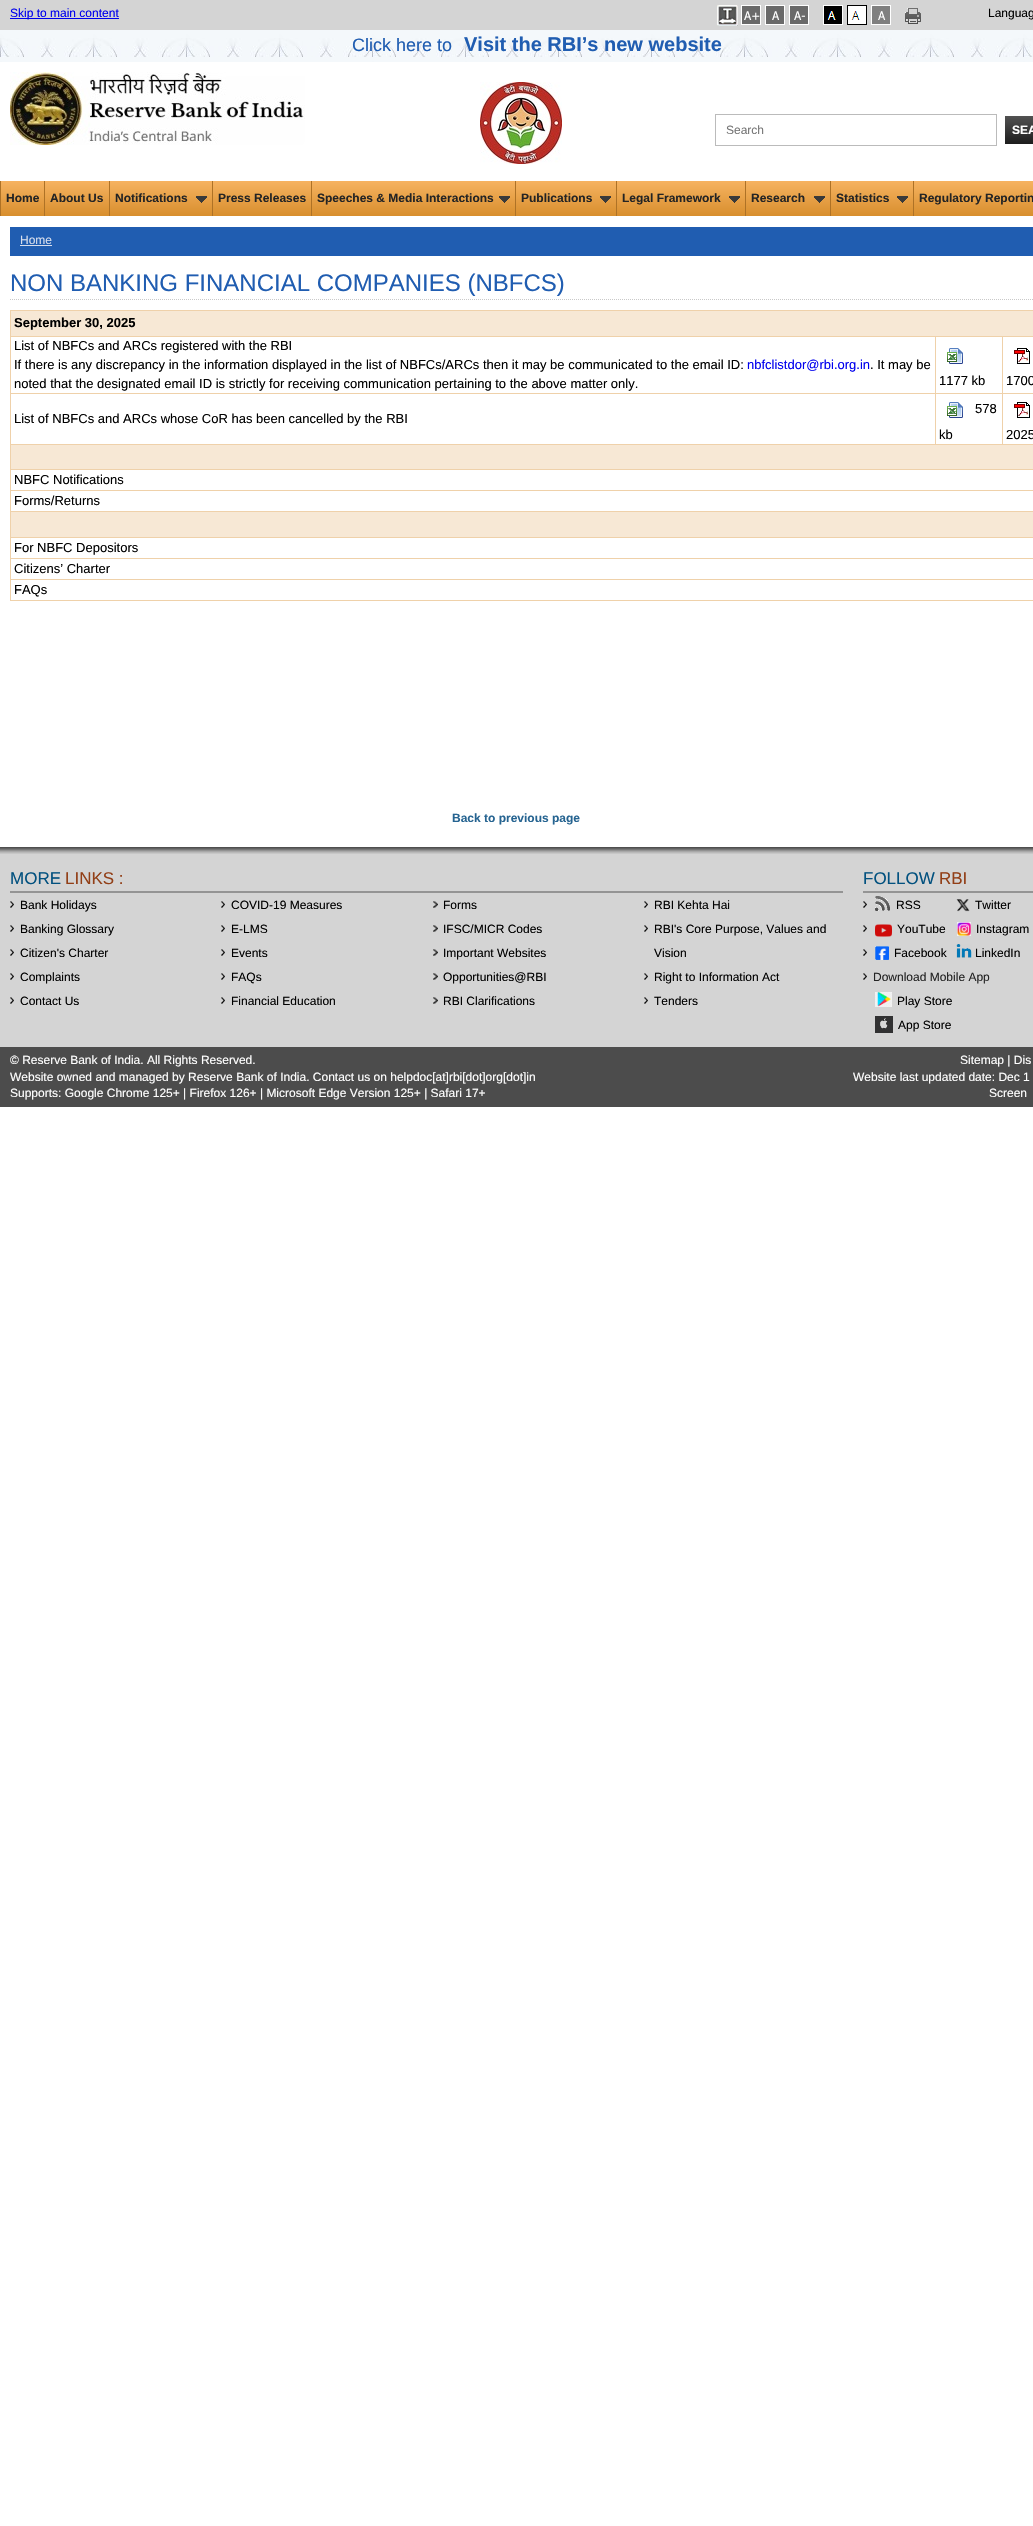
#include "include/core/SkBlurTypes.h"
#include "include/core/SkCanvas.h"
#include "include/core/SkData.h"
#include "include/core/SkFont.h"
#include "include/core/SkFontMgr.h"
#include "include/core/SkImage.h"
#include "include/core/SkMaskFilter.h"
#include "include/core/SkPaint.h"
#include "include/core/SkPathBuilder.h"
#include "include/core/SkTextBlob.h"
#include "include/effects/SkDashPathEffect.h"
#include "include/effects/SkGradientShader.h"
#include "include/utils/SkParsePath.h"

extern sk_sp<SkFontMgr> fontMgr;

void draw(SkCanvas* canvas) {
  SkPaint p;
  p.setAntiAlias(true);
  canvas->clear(SK_ColorWHITE);
  p.setColor(SkColorSetRGB(212, 212, 212));
  canvas->drawRect(SkRect::MakeLTRB(0, 0, 1033, 30), p);
  p.setColor(SkColorSetRGB(0, 0, 238));
  canvas->drawRect(SkRect::MakeLTRB(10, 18, 119, 19), p);
  canvas->drawImageRect(SkImages::DeferredFromEncodedData(SkData::MakeFromFileName("images/1.png")), SkRect::MakeLTRB(717, 5, 738, 26), SkSamplingOptions());
  canvas->drawImageRect(SkImages::DeferredFromEncodedData(SkData::MakeFromFileName("images/2.png")), SkRect::MakeLTRB(741, 5, 761, 25), SkSamplingOptions());
  canvas->drawImageRect(SkImages::DeferredFromEncodedData(SkData::MakeFromFileName("images/3.png")), SkRect::MakeLTRB(765, 5, 785, 25), SkSamplingOptions());
  canvas->drawImageRect(SkImages::DeferredFromEncodedData(SkData::MakeFromFileName("images/4.png")), SkRect::MakeLTRB(789, 5, 809, 25), SkSamplingOptions());
  canvas->drawImageRect(SkImages::DeferredFromEncodedData(SkData::MakeFromFileName("images/5.png")), SkRect::MakeLTRB(823, 5, 843, 25), SkSamplingOptions());
  canvas->drawImageRect(SkImages::DeferredFromEncodedData(SkData::MakeFromFileName("images/6.png")), SkRect::MakeLTRB(847, 5, 867, 25), SkSamplingOptions());
  p.setColor(SK_ColorWHITE);
  canvas->drawRect(SkRect::MakeLTRB(871, 5, 891, 6), p);
  canvas->drawImageRect(SkImages::DeferredFromEncodedData(SkData::MakeFromFileName("images/7.png")), SkRect::MakeLTRB(871, 6, 891, 25), SkSamplingOptions());
  canvas->drawImageRect(SkImages::DeferredFromEncodedData(SkData::MakeFromFileName("images/8.png")), SkRect::MakeLTRB(905, 8, 921, 24), SkSamplingOptions());
  canvas->drawImageRect(SkImages::DeferredFromEncodedData(SkData::MakeFromFileName("images/9.png")), SkRect::MakeLTRB(0, 30, 1033, 62), SkSamplingOptions());
  canvas->drawImageRect(SkImages::DeferredFromEncodedData(SkData::MakeFromFileName("images/10.png")), SkRect::MakeLTRB(10, 72, 305, 145), SkSamplingOptions());
  canvas->drawImageRect(SkImages::DeferredFromEncodedData(SkData::MakeFromFileName("images/11.png")), SkRect::MakeLTRB(480, 82, 562, 164), SkSamplingOptions());
  p.setStyle(SkPaint::kStroke_Style);
  p.setStrokeWidth(1);
  p.setColor(SkColorSetRGB(187, 187, 187));
  canvas->drawRect(SkRect::MakeLTRB(715.5f, 114.5f, 996.5f, 145.5f), p);
  p.setStyle(SkPaint::kFill_Style);
  {
    const SkColor colors[] = {SkColorSetRGB(82, 82, 82), SkColorSetRGB(29, 29, 29)};
    const float stops[] = {0, 1};
    const SkPoint ends[] = {{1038, 116}, {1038, 144}};
    p.setShader(SkGradientShader::MakeLinear(ends, colors, stops, 2, SkTileMode::kClamp));
    p.setAlpha(255);
  }
  canvas->drawRect(SkRect::MakeLTRB(1005, 116, 1033, 144), p);
  {
    const SkColor colors[] = {SkColorSetRGB(246, 179, 97), SkColorSetRGB(216, 142, 45)};
    const float stops[] = {0, 1};
    const SkPoint ends[] = {{540, 181}, {540, 216}};
    p.setShader(SkGradientShader::MakeLinear(ends, colors, stops, 2, SkTileMode::kClamp));
    p.setAlpha(255);
  }
  canvas->drawRect(SkRect::MakeLTRB(1, 181, 1033, 216), p);
  p.setShader(nullptr);
  p.setColor(SkColorSetRGB(174, 114, 38));
  canvas->drawRect(SkRect::MakeLTRB(0, 181, 1, 216), p);
  canvas->drawRect(SkRect::MakeLTRB(44, 181, 45, 216), p);
  canvas->drawRect(SkRect::MakeLTRB(109, 181, 110, 216), p);
  canvas->drawImageRect(SkImages::DeferredFromEncodedData(SkData::MakeFromFileName("images/12.png")), SkRect::MakeLTRB(196, 196, 207, 203), SkSamplingOptions());
  canvas->drawRect(SkRect::MakeLTRB(212, 181, 213, 216), p);
  canvas->drawRect(SkRect::MakeLTRB(311, 181, 312, 216), p);
  canvas->drawImageRect(SkImages::DeferredFromEncodedData(SkData::MakeFromFileName("images/12.png")), SkRect::MakeLTRB(499, 196, 510, 203), SkSamplingOptions());
  canvas->drawRect(SkRect::MakeLTRB(515, 181, 516, 216), p);
  canvas->drawImageRect(SkImages::DeferredFromEncodedData(SkData::MakeFromFileName("images/12.png")), SkRect::MakeLTRB(600, 196, 611, 203), SkSamplingOptions());
  canvas->drawRect(SkRect::MakeLTRB(616, 181, 617, 216), p);
  canvas->drawImageRect(SkImages::DeferredFromEncodedData(SkData::MakeFromFileName("images/12.png")), SkRect::MakeLTRB(729, 196, 740, 203), SkSamplingOptions());
  canvas->drawRect(SkRect::MakeLTRB(745, 181, 746, 216), p);
  canvas->drawImageRect(SkImages::DeferredFromEncodedData(SkData::MakeFromFileName("images/12.png")), SkRect::MakeLTRB(814, 196, 825, 203), SkSamplingOptions());
  canvas->drawRect(SkRect::MakeLTRB(830, 181, 831, 216), p);
  canvas->drawImageRect(SkImages::DeferredFromEncodedData(SkData::MakeFromFileName("images/12.png")), SkRect::MakeLTRB(897, 196, 908, 203), SkSamplingOptions());
  canvas->drawRect(SkRect::MakeLTRB(913, 181, 914, 216), p);
  p.setColor(SkColorSetRGB(32, 93, 177));
  canvas->drawRect(SkRect::MakeLTRB(10, 227, 1033, 256), p);
  p.setColor(SkColorSetRGB(215, 222, 237));
  canvas->drawRect(SkRect::MakeLTRB(20, 245, 52, 246), p);
  p.setStyle(SkPaint::kStroke_Style);
  p.setColor(SkColorSetRGB(201, 201, 201));
  p.setPathEffect(SkDashPathEffect::Make({{1, 1}}, 0));
  canvas->drawPath(SkPathBuilder().moveTo(10, 299.5f).lineTo(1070, 299.5f).detach(), p);
  p.setPathEffect(nullptr);
  p.setStyle(SkPaint::kFill_Style);
  p.setColor(SkColorSetRGB(247, 232, 213));
  canvas->drawRect(SkRect::MakeLTRB(11, 311, 1033, 336), p);
  p.setColor(SkColorSetRGB(239, 209, 170));
  canvas->drawRect(SkRect::MakeLTRB(10, 310, 1033, 311), p);
  canvas->drawRect(SkRect::MakeLTRB(1002, 336, 1033, 337), p);
  canvas->drawRect(SkRect::MakeLTRB(1002, 393, 1033, 394), p);
  canvas->drawRect(SkRect::MakeLTRB(10, 444, 1033, 445), p);
  canvas->drawRect(SkRect::MakeLTRB(1002, 393, 1003, 445), p);
  canvas->drawRect(SkRect::MakeLTRB(935, 393, 1003, 394), p);
  canvas->drawRect(SkRect::MakeLTRB(1002, 336, 1003, 394), p);
  canvas->drawRect(SkRect::MakeLTRB(935, 336, 1003, 337), p);
  canvas->drawRect(SkRect::MakeLTRB(935, 393, 936, 445), p);
  canvas->drawRect(SkRect::MakeLTRB(10, 393, 936, 394), p);
  canvas->drawRect(SkRect::MakeLTRB(935, 336, 936, 394), p);
  canvas->drawRect(SkRect::MakeLTRB(10, 336, 936, 337), p);
  canvas->drawRect(SkRect::MakeLTRB(10, 469, 1033, 470), p);
  canvas->drawRect(SkRect::MakeLTRB(10, 490, 1033, 491), p);
  canvas->drawRect(SkRect::MakeLTRB(10, 511, 1033, 512), p);
  canvas->drawRect(SkRect::MakeLTRB(10, 537, 1033, 538), p);
  canvas->drawRect(SkRect::MakeLTRB(10, 558, 1033, 559), p);
  canvas->drawRect(SkRect::MakeLTRB(10, 579, 1033, 580), p);
  canvas->drawRect(SkRect::MakeLTRB(10, 600, 1033, 601), p);
  canvas->drawRect(SkRect::MakeLTRB(10, 579, 11, 601), p);
  canvas->drawRect(SkRect::MakeLTRB(10, 558, 11, 580), p);
  canvas->drawRect(SkRect::MakeLTRB(10, 537, 11, 559), p);
  canvas->drawRect(SkRect::MakeLTRB(10, 511, 11, 538), p);
  canvas->drawRect(SkRect::MakeLTRB(10, 490, 11, 512), p);
  canvas->drawRect(SkRect::MakeLTRB(10, 469, 11, 491), p);
  canvas->drawRect(SkRect::MakeLTRB(10, 444, 11, 470), p);
  canvas->drawRect(SkRect::MakeLTRB(10, 393, 11, 445), p);
  canvas->drawRect(SkRect::MakeLTRB(10, 336, 11, 394), p);
  canvas->drawRect(SkRect::MakeLTRB(10, 310, 11, 337), p);
  canvas->drawImageRect(SkImages::DeferredFromEncodedData(SkData::MakeFromFileName("images/13.png")), SkRect::MakeLTRB(947, 348, 963, 364), SkSamplingOptions());
  canvas->drawImageRect(SkImages::DeferredFromEncodedData(SkData::MakeFromFileName("images/14.png")), SkRect::MakeLTRB(1014, 348, 1030, 364), SkSamplingOptions());
  canvas->drawImageRect(SkImages::DeferredFromEncodedData(SkData::MakeFromFileName("images/13.png")), SkRect::MakeLTRB(947, 402, 963, 418), SkSamplingOptions());
  canvas->drawImageRect(SkImages::DeferredFromEncodedData(SkData::MakeFromFileName("images/14.png")), SkRect::MakeLTRB(1014, 402, 1030, 418), SkSamplingOptions());
  p.setColor(SkColorSetRGB(247, 232, 213));
  canvas->drawRect(SkRect::MakeLTRB(11, 445, 1033, 469), p);
  canvas->drawRect(SkRect::MakeLTRB(11, 512, 1033, 537), p);
  p.setColor(SkColorSetRGB(212, 212, 212));
  canvas->drawRect(SkRect::MakeLTRB(0, 854, 1033, 1047), p);
  canvas->drawImageRect(SkImages::DeferredFromEncodedData(SkData::MakeFromFileName("images/15.png")), SkRect::MakeLTRB(0, 847, 1033, 854), SkSamplingOptions());
  p.setColor(SkColorSetRGB(148, 148, 148));
  canvas->drawRect(SkRect::MakeLTRB(10, 891, 843, 893), p);
  canvas->drawImageRect(SkImages::DeferredFromEncodedData(SkData::MakeFromFileName("images/16.png")), SkRect::MakeLTRB(10, 901, 14, 908), SkSamplingOptions());
  canvas->drawImageRect(SkImages::DeferredFromEncodedData(SkData::MakeFromFileName("images/16.png")), SkRect::MakeLTRB(221, 901, 225, 908), SkSamplingOptions());
  canvas->drawImageRect(SkImages::DeferredFromEncodedData(SkData::MakeFromFileName("images/17.png")), SkRect::MakeLTRB(433, 901, 438, 908), SkSamplingOptions());
  canvas->drawImageRect(SkImages::DeferredFromEncodedData(SkData::MakeFromFileName("images/16.png")), SkRect::MakeLTRB(644, 901, 648, 908), SkSamplingOptions());
  canvas->drawImageRect(SkImages::DeferredFromEncodedData(SkData::MakeFromFileName("images/16.png")), SkRect::MakeLTRB(10, 925, 14, 932), SkSamplingOptions());
  canvas->drawImageRect(SkImages::DeferredFromEncodedData(SkData::MakeFromFileName("images/16.png")), SkRect::MakeLTRB(221, 925, 225, 932), SkSamplingOptions());
  canvas->drawImageRect(SkImages::DeferredFromEncodedData(SkData::MakeFromFileName("images/17.png")), SkRect::MakeLTRB(433, 925, 438, 932), SkSamplingOptions());
  canvas->drawImageRect(SkImages::DeferredFromEncodedData(SkData::MakeFromFileName("images/16.png")), SkRect::MakeLTRB(644, 925, 648, 932), SkSamplingOptions());
  canvas->drawImageRect(SkImages::DeferredFromEncodedData(SkData::MakeFromFileName("images/16.png")), SkRect::MakeLTRB(10, 949, 14, 956), SkSamplingOptions());
  canvas->drawImageRect(SkImages::DeferredFromEncodedData(SkData::MakeFromFileName("images/16.png")), SkRect::MakeLTRB(221, 949, 225, 956), SkSamplingOptions());
  canvas->drawImageRect(SkImages::DeferredFromEncodedData(SkData::MakeFromFileName("images/17.png")), SkRect::MakeLTRB(433, 949, 438, 956), SkSamplingOptions());
  canvas->drawImageRect(SkImages::DeferredFromEncodedData(SkData::MakeFromFileName("images/16.png")), SkRect::MakeLTRB(10, 973, 14, 980), SkSamplingOptions());
  canvas->drawImageRect(SkImages::DeferredFromEncodedData(SkData::MakeFromFileName("images/16.png")), SkRect::MakeLTRB(221, 973, 225, 980), SkSamplingOptions());
  canvas->drawImageRect(SkImages::DeferredFromEncodedData(SkData::MakeFromFileName("images/17.png")), SkRect::MakeLTRB(433, 973, 438, 980), SkSamplingOptions());
  canvas->drawImageRect(SkImages::DeferredFromEncodedData(SkData::MakeFromFileName("images/16.png")), SkRect::MakeLTRB(644, 973, 648, 980), SkSamplingOptions());
  canvas->drawImageRect(SkImages::DeferredFromEncodedData(SkData::MakeFromFileName("images/16.png")), SkRect::MakeLTRB(10, 997, 14, 1004), SkSamplingOptions());
  canvas->drawImageRect(SkImages::DeferredFromEncodedData(SkData::MakeFromFileName("images/16.png")), SkRect::MakeLTRB(221, 997, 225, 1004), SkSamplingOptions());
  canvas->drawImageRect(SkImages::DeferredFromEncodedData(SkData::MakeFromFileName("images/17.png")), SkRect::MakeLTRB(433, 997, 438, 1004), SkSamplingOptions());
  canvas->drawImageRect(SkImages::DeferredFromEncodedData(SkData::MakeFromFileName("images/16.png")), SkRect::MakeLTRB(644, 997, 648, 1004), SkSamplingOptions());
  canvas->drawRect(SkRect::MakeLTRB(863, 891, 1033, 893), p);
  canvas->drawImageRect(SkImages::DeferredFromEncodedData(SkData::MakeFromFileName("images/18.png")), SkRect::MakeLTRB(875, 896, 890, 911), SkSamplingOptions());
  canvas->drawImageRect(SkImages::DeferredFromEncodedData(SkData::MakeFromFileName("images/16.png")), SkRect::MakeLTRB(863, 901, 867, 908), SkSamplingOptions());
  canvas->drawImageRect(SkImages::DeferredFromEncodedData(SkData::MakeFromFileName("images/19.png")), SkRect::MakeLTRB(956, 899, 970, 912), SkSamplingOptions());
  canvas->drawImageRect(SkImages::DeferredFromEncodedData(SkData::MakeFromFileName("images/20.png")), SkRect::MakeLTRB(875, 924, 892, 937), SkSamplingOptions());
  canvas->drawImageRect(SkImages::DeferredFromEncodedData(SkData::MakeFromFileName("images/16.png")), SkRect::MakeLTRB(863, 925, 867, 932), SkSamplingOptions());
  canvas->drawImageRect(SkImages::DeferredFromEncodedData(SkData::MakeFromFileName("images/21.png")), SkRect::MakeLTRB(957, 922, 971, 936), SkSamplingOptions());
  canvas->drawImageRect(SkImages::DeferredFromEncodedData(SkData::MakeFromFileName("images/22.png")), SkRect::MakeLTRB(875, 946, 889, 960), SkSamplingOptions());
  canvas->drawImageRect(SkImages::DeferredFromEncodedData(SkData::MakeFromFileName("images/16.png")), SkRect::MakeLTRB(863, 949, 867, 956), SkSamplingOptions());
  canvas->drawImageRect(SkImages::DeferredFromEncodedData(SkData::MakeFromFileName("images/23.png")), SkRect::MakeLTRB(956, 944, 972, 958), SkSamplingOptions());
  canvas->drawImageRect(SkImages::DeferredFromEncodedData(SkData::MakeFromFileName("images/16.png")), SkRect::MakeLTRB(863, 973, 867, 980), SkSamplingOptions());
  canvas->drawImageRect(SkImages::DeferredFromEncodedData(SkData::MakeFromFileName("images/24.png")), SkRect::MakeLTRB(875, 992, 892, 1007), SkSamplingOptions());
  canvas->drawImageRect(SkImages::DeferredFromEncodedData(SkData::MakeFromFileName("images/25.png")), SkRect::MakeLTRB(875, 1016, 893, 1033), SkSamplingOptions());
  p.setColor(SkColorSetRGB(76, 76, 76));
  canvas->drawRect(SkRect::MakeLTRB(0, 1047, 1033, 1107), p);
  SkFont font1(fontMgr->matchFamilyStyle("Liberation Sans", SkFontStyle::Normal()), 12);
  font1.setSubpixel(true);
  p.setColor(SkColorSetRGB(0, 0, 238));
  canvas->drawString("Skip to main content", 10, 17, font1, p);
  p.setColor(SK_ColorBLACK);
  canvas->drawString("Languag", 988, 17, font1, p);
  SkFont font2(fontMgr->matchFamilyStyle("Liberation Sans", SkFontStyle::Normal()), 18);
  font2.setSubpixel(true);
  p.setColor(SkColorSetRGB(32, 93, 177));
  canvas->drawString("Click here to", 352, 51, font2, p);
  SkFont font3(fontMgr->matchFamilyStyle("Liberation Sans", SkFontStyle::Bold()), 20);
  font3.setSubpixel(true);
  canvas->drawString("Visit the RBI’s new website", 464, 51, font3, p);
  p.setColor(SkColorSetRGB(117, 117, 117));
  canvas->drawString("Search", 726, 134, font1, p);
  SkFont font4(fontMgr->matchFamilyStyle("Liberation Sans", SkFontStyle::Bold()), 12);
  font4.setSubpixel(true);
  p.setColor(SK_ColorWHITE);
  canvas->drawString("SEA", 1012, 134, font4, p);
  p.setColor(SkColorSetRGB(36, 36, 36));
  canvas->drawString("Home", 6, 202, font4, p);
  canvas->drawString("About Us", 50, 202, font4, p);
  canvas->drawString("Notifications", 115, 202, font4, p);
  canvas->drawString("Press Releases", 218, 202, font4, p);
  canvas->drawString("Speeches & Media Interactions", 317, 202, font4, p);
  canvas->drawString("Publications", 521, 202, font4, p);
  canvas->drawString("Legal Framework", 622, 202, font4, p);
  canvas->drawString("Research", 751, 202, font4, p);
  canvas->drawString("Statistics", 836, 202, font4, p);
  canvas->drawString("Regulatory Reportin", 919, 202, font4, p);
  p.setColor(SkColorSetRGB(215, 222, 237));
  canvas->drawString("Home", 20, 244, font1, p);
  SkFont font5(fontMgr->matchFamilyStyle("Liberation Sans", SkFontStyle::Normal()), 24);
  font5.setSubpixel(true);
  p.setColor(SkColorSetRGB(32, 93, 177));
  canvas->drawString("NON BANKING FINANCIAL COMPANIES (NBFCS)", 10, 291, font5, p);
  SkFont font6(fontMgr->matchFamilyStyle("Liberation Sans", SkFontStyle::Bold()), 13);
  font6.setSubpixel(true);
  p.setColor(SK_ColorBLACK);
  canvas->drawString("September 30, 2025", 14, 327, font6, p);
  SkFont font7(fontMgr->matchFamilyStyle("Liberation Sans", SkFontStyle::Normal()), 13);
  font7.setSubpixel(true);
  canvas->drawString("List of NBFCs and ARCs registered with the RBI", 14, 350, font7, p);
  canvas->drawString("If there is any discrepancy in the information displayed in the list of NBFCs/ARCs then it may be communicated to the email ID:", 14, 369, font7, p);
  p.setColor(SkColorSetRGB(0, 0, 238));
  canvas->drawString("nbfclistdor@rbi.org.in", 747, 369, font7, p);
  p.setColor(SK_ColorBLACK);
  canvas->drawString(". It may be", 870, 369, font7, p);
  canvas->drawString("noted that the designated email ID is strictly for receiving communication pertaining to the above matter only.", 14, 388, font7, p);
  canvas->drawString("1177 kb", 939, 385, font7, p);
  canvas->drawString("1700", 1006, 385, font7, p);
  canvas->drawString("List of NBFCs and ARCs whose CoR has been cancelled by the RBI", 14, 423, font7, p);
  canvas->drawString("578", 975, 413, font7, p);
  canvas->drawString("kb", 939, 439, font7, p);
  canvas->drawString("2025", 1006, 439, font7, p);
  canvas->drawString("NBFC Notifications", 14, 484, font7, p);
  canvas->drawString("Forms/Returns", 14, 505, font7, p);
  canvas->drawString("For NBFC Depositors", 14, 552, font7, p);
  canvas->drawString("Citizens’ Charter", 14, 573, font7, p);
  canvas->drawString("FAQs", 14, 594, font7, p);
  p.setColor(SkColorSetRGB(38, 100, 145));
  canvas->drawString("Back to previous page", 452, 822, font4, p);
  SkFont font8(fontMgr->matchFamilyStyle("Liberation Sans", SkFontStyle::Normal()), 17);
  font8.setSubpixel(true);
  p.setColor(SkColorSetRGB(2, 81, 127));
  canvas->drawString("MORE", 10, 884, font8, p);
  p.setColor(SkColorSetRGB(146, 63, 23));
  canvas->drawString("LINKS :", 65, 884, font8, p);
  p.setColor(SK_ColorBLACK);
  canvas->drawString("Bank Holidays", 20, 909, font1, p);
  canvas->drawString("COVID-19 Measures", 231, 909, font1, p);
  canvas->drawString("Forms", 443, 909, font1, p);
  canvas->drawString("RBI Kehta Hai", 654, 909, font1, p);
  canvas->drawString("Banking Glossary", 20, 933, font1, p);
  canvas->drawString("E-LMS", 231, 933, font1, p);
  canvas->drawString("IFSC/MICR Codes", 443, 933, font1, p);
  canvas->drawString("RBI's Core Purpose, Values and", 654, 933, font1, p);
  canvas->drawString("Vision", 654, 957, font1, p);
  canvas->drawString("Citizen's Charter", 20, 957, font1, p);
  canvas->drawString("Events", 231, 957, font1, p);
  canvas->drawString("Important Websites", 443, 957, font1, p);
  canvas->drawString("Complaints", 20, 981, font1, p);
  canvas->drawString("FAQs", 231, 981, font1, p);
  canvas->drawString("Opportunities@RBI", 443, 981, font1, p);
  canvas->drawString("Right to Information Act", 654, 981, font1, p);
  canvas->drawString("Contact Us", 20, 1005, font1, p);
  canvas->drawString("Financial Education", 231, 1005, font1, p);
  canvas->drawString("RBI Clarifications", 443, 1005, font1, p);
  canvas->drawString("Tenders", 654, 1005, font1, p);
  p.setColor(SkColorSetRGB(2, 81, 127));
  canvas->drawString("FOLLOW", 863, 884, font8, p);
  p.setColor(SkColorSetRGB(146, 63, 23));
  canvas->drawString("RBI", 939, 884, font8, p);
  p.setColor(SK_ColorBLACK);
  canvas->drawString("RSS", 896, 909, font1, p);
  canvas->drawString("Twitter", 975, 909, font1, p);
  canvas->drawString("YouTube", 897, 933, font1, p);
  canvas->drawString("Instagram", 976, 933, font1, p);
  canvas->drawString("Facebook", 894, 957, font1, p);
  canvas->drawString("LinkedIn", 975, 957, font1, p);
  p.setColor(SkColorSetRGB(36, 36, 36));
  canvas->drawString("Download Mobile App", 873, 981, font1, p);
  p.setColor(SK_ColorBLACK);
  canvas->drawString("Play Store", 897, 1005, font1, p);
  canvas->drawString("App Store", 898, 1029, font1, p);
  p.setColor(SK_ColorWHITE);
  canvas->drawString("© Reserve Bank of India. All Rights Reserved.", 10, 1064, font1, p);
  canvas->drawString("Sitemap | Dis", 960, 1064, font1, p);
  canvas->drawString("Website owned and managed by Reserve Bank of India. Contact us on helpdoc[at]rbi[dot]org[dot]in", 10, 1081, font1, p);
  canvas->drawString("Website last updated date: Dec 1", 853, 1081, font1, p);
  canvas->drawString("Supports: Google Chrome 125+ | Firefox 126+ | Microsoft Edge Version 125+ | Safari 17+", 10, 1097, font1, p);
  canvas->drawString("Screen", 989, 1097, font1, p);
}
